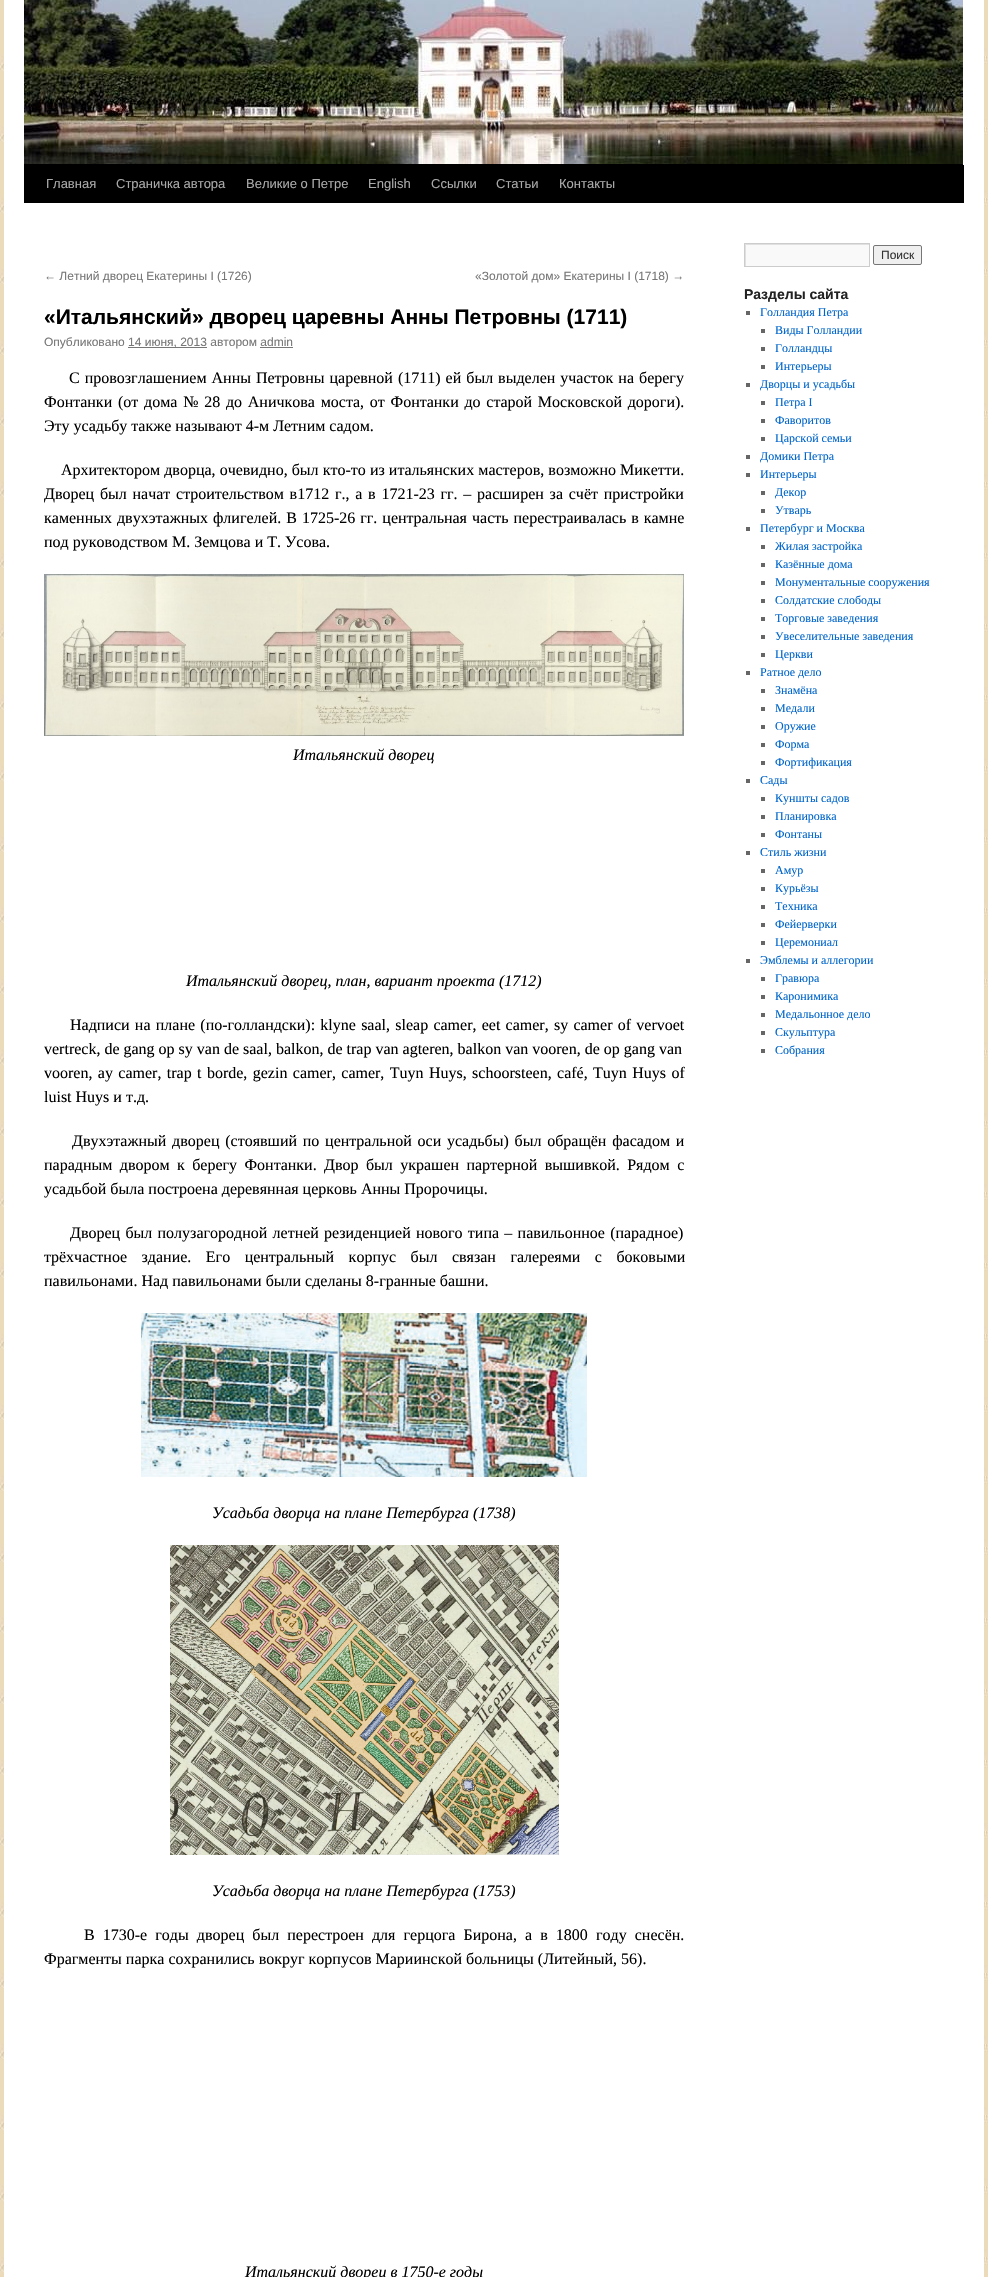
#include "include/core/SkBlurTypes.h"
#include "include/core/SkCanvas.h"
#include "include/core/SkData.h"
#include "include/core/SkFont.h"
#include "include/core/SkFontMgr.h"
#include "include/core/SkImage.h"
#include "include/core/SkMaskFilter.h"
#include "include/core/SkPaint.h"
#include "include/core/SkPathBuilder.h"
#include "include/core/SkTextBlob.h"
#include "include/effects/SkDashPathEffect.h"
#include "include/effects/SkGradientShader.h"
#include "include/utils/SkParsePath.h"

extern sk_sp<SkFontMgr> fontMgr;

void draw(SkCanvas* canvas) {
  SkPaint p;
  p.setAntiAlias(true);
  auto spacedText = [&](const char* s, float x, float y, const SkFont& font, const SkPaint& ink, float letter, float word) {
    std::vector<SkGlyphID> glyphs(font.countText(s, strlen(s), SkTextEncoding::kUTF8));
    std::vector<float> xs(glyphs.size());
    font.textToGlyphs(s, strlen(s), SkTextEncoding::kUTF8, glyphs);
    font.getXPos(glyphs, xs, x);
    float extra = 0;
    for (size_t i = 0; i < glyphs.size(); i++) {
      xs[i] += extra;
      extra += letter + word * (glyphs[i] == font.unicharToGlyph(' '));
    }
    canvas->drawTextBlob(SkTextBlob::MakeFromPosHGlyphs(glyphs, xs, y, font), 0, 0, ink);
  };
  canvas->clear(SK_ColorWHITE);
  canvas->drawImageRect(SkImages::DeferredFromEncodedData(SkData::MakeFromFileName("images/1.png")), SkRect::MakeLTRB(0, 0, 988, 2277), SkSamplingOptions());
  p.setColor(SK_ColorWHITE);
  canvas->drawRect(SkRect::MakeLTRB(4, 0, 984, 2277), p);
  p.setColor(SK_ColorBLACK);
  canvas->drawRect(SkRect::MakeLTRB(24, 164, 963, 165), p);
  canvas->drawImageRect(SkImages::DeferredFromEncodedData(SkData::MakeFromFileName("images/2.png")), SkRect::MakeLTRB(24, 0, 963, 164), SkSamplingOptions());
  canvas->drawRect(SkRect::MakeLTRB(24, 165, 964, 203), p);
  p.setColor(SkColorSetRGB(249, 249, 249));
  canvas->drawRect(SkRect::MakeLTRB(746, 245, 869, 266), p);
  canvas->save();
  canvas->clipRect(SkRect::MakeLTRB(745, 244, 869, 266));
  p.setColor(SkColorSetRGB(224, 224, 224));
  canvas->drawPath(SkPathBuilder(SkPathFillType::kEvenOdd).moveTo(646, 145).lineTo(968, 145).lineTo(968, 365).lineTo(646, 365).close().moveTo(746, 245).lineTo(870, 245).lineTo(870, 267).lineTo(746, 267).close().detach(), p);
  canvas->restore();
  p.setStyle(SkPaint::kStroke_Style);
  p.setStrokeWidth(1);
  p.setColor(SkColorSetRGB(204, 204, 204));
  canvas->drawRect(SkRect::MakeLTRB(744.5f, 243.5f, 869.5f, 266.5f), p);
  p.setStyle(SkPaint::kFill_Style);
  p.setColor(SkColorSetRGB(239, 239, 239));
  canvas->drawRoundRect(SkRect::MakeLTRB(873.5f, 245.5f, 921.5f, 264.5f), 1.5f, 1.5f, p);
  p.setStyle(SkPaint::kStroke_Style);
  p.setColor(SkColorSetRGB(118, 118, 118));
  canvas->drawRoundRect(SkRect::MakeLTRB(873.5f, 245.5f, 921.5f, 264.5f), 1.5f, 1.5f, p);
  p.setStyle(SkPaint::kFill_Style);
  p.setColor(SkColorSetRGB(119, 119, 119));
  canvas->drawRect(SkRect::MakeLTRB(128, 347, 207, 348), p);
  canvas->drawRect(SkRect::MakeLTRB(260, 347, 293, 348), p);
  canvas->drawImageRect(SkImages::DeferredFromEncodedData(SkData::MakeFromFileName("images/3.png")), SkRect::MakeLTRB(44, 574, 684, 736), SkSamplingOptions());
  canvas->drawImageRect(SkImages::DeferredFromEncodedData(SkData::MakeFromFileName("images/4.png")), SkRect::MakeLTRB(141, 1313, 587, 1477), SkSamplingOptions());
  canvas->drawImageRect(SkImages::DeferredFromEncodedData(SkData::MakeFromFileName("images/5.png")), SkRect::MakeLTRB(170, 1545, 559, 1855), SkSamplingOptions());
  p.setColor(SkColorSetRGB(102, 102, 102));
  canvas->drawRect(SkRect::MakeLTRB(746, 311, 750, 315), p);
  canvas->drawRect(SkRect::MakeLTRB(761, 329, 765, 333), p);
  canvas->drawRect(SkRect::MakeLTRB(761, 347, 765, 351), p);
  canvas->drawRect(SkRect::MakeLTRB(761, 365, 765, 369), p);
  canvas->drawRect(SkRect::MakeLTRB(746, 383, 750, 387), p);
  canvas->drawRect(SkRect::MakeLTRB(761, 401, 765, 405), p);
  canvas->drawRect(SkRect::MakeLTRB(761, 419, 765, 423), p);
  canvas->drawRect(SkRect::MakeLTRB(761, 437, 765, 441), p);
  canvas->drawRect(SkRect::MakeLTRB(746, 455, 750, 459), p);
  canvas->drawRect(SkRect::MakeLTRB(746, 473, 750, 477), p);
  canvas->drawRect(SkRect::MakeLTRB(761, 491, 765, 495), p);
  canvas->drawRect(SkRect::MakeLTRB(761, 509, 765, 513), p);
  canvas->drawRect(SkRect::MakeLTRB(746, 527, 750, 531), p);
  canvas->drawRect(SkRect::MakeLTRB(761, 545, 765, 549), p);
  canvas->drawRect(SkRect::MakeLTRB(761, 563, 765, 567), p);
  canvas->drawRect(SkRect::MakeLTRB(761, 581, 765, 585), p);
  canvas->drawRect(SkRect::MakeLTRB(761, 599, 765, 603), p);
  canvas->drawRect(SkRect::MakeLTRB(761, 617, 765, 621), p);
  canvas->drawRect(SkRect::MakeLTRB(761, 635, 765, 639), p);
  canvas->drawRect(SkRect::MakeLTRB(761, 653, 765, 657), p);
  canvas->drawRect(SkRect::MakeLTRB(746, 671, 750, 675), p);
  canvas->drawRect(SkRect::MakeLTRB(761, 689, 765, 693), p);
  canvas->drawRect(SkRect::MakeLTRB(761, 707, 765, 711), p);
  canvas->drawRect(SkRect::MakeLTRB(761, 725, 765, 729), p);
  canvas->drawRect(SkRect::MakeLTRB(761, 743, 765, 747), p);
  canvas->drawRect(SkRect::MakeLTRB(761, 761, 765, 765), p);
  canvas->drawRect(SkRect::MakeLTRB(746, 779, 750, 783), p);
  canvas->drawRect(SkRect::MakeLTRB(761, 797, 765, 801), p);
  canvas->drawRect(SkRect::MakeLTRB(761, 815, 765, 819), p);
  canvas->drawRect(SkRect::MakeLTRB(761, 833, 765, 837), p);
  canvas->drawRect(SkRect::MakeLTRB(746, 851, 750, 855), p);
  canvas->drawRect(SkRect::MakeLTRB(761, 869, 765, 873), p);
  canvas->drawRect(SkRect::MakeLTRB(761, 887, 765, 891), p);
  canvas->drawRect(SkRect::MakeLTRB(761, 905, 765, 909), p);
  canvas->drawRect(SkRect::MakeLTRB(761, 923, 765, 927), p);
  canvas->drawRect(SkRect::MakeLTRB(761, 941, 765, 945), p);
  canvas->drawRect(SkRect::MakeLTRB(746, 959, 750, 963), p);
  canvas->drawRect(SkRect::MakeLTRB(761, 977, 765, 981), p);
  canvas->drawRect(SkRect::MakeLTRB(761, 995, 765, 999), p);
  canvas->drawRect(SkRect::MakeLTRB(761, 1013, 765, 1017), p);
  canvas->drawRect(SkRect::MakeLTRB(761, 1031, 765, 1035), p);
  canvas->drawRect(SkRect::MakeLTRB(761, 1049, 765, 1053), p);
  SkFont font1(fontMgr->matchFamilyStyle("Liberation Sans", SkFontStyle::Normal()), 13);
  font1.setSubpixel(true);
  p.setColor(SkColorSetRGB(170, 170, 170));
  canvas->drawString("Главная", 46, 188, font1, p);
  canvas->drawString("Страничка автора", 116, 188, font1, p);
  canvas->drawString("Великие о Петре", 246, 188, font1, p);
  canvas->drawString("English", 368, 188, font1, p);
  canvas->drawString("Ссылки", 431, 188, font1, p);
  canvas->drawString("Статьи", 496, 188, font1, p);
  canvas->drawString("Контакты", 559, 188, font1, p);
  SkFont font2(fontMgr->matchFamilyStyle("Liberation Sans", SkFontStyle::Normal()), 12);
  font2.setSubpixel(true);
  p.setColor(SkColorSetRGB(51, 51, 51));
  canvas->drawString("Поиск", 881, 259, font2, p);
  p.setColor(SkColorSetRGB(119, 119, 119));
  canvas->drawString("← Летний дворец Екатерины I (1726)", 44, 280, font2, p);
  canvas->drawString("«Золотой дом» Екатерины I (1718) →", 475, 280, font2, p);
  SkFont font3(fontMgr->matchFamilyStyle("Liberation Sans", SkFontStyle::Bold()), 21);
  font3.setSubpixel(true);
  p.setColor(SK_ColorBLACK);
  canvas->drawString("«Итальянский» дворец царевны Анны Петровны (1711)", 44, 324, font3, p);
  p.setColor(SkColorSetRGB(119, 119, 119));
  canvas->drawString("Опубликовано", 44, 346, font2, p);
  canvas->drawString("14 июня, 2013 автором admin", 128, 346, font2, p);
  SkFont font4(fontMgr->matchFamilyStyle("Liberation Serif", SkFontStyle::Normal()), 16);
  font4.setSubpixel(true);
  p.setColor(SK_ColorBLACK);
  spacedText("С провозглашением Анны Петровны царевной (1711) ей был выделен участок на берегу", 69, 383, font4, p, 0, 1);
  spacedText("Фонтанки (от дома № 28 до Аничкова моста, от Фонтанки до старой Московской дороги).", 44, 407, font4, p, 0, 1.75f);
  canvas->drawString("Эту усадьбу также называют 4-м Летним садом.", 44, 431, font4, p);
  spacedText("Архитектором дворца, очевидно, был кто-то из итальянских мастеров, возможно Микетти.", 61, 475, font4, p, 0, 0.1f);
  spacedText("Дворец был начат строительством в1712 г., а в 1721-23 гг. – расширен за счёт пристройки", 44, 499, font4, p, 0, 1.75f);
  spacedText("каменных двухэтажных флигелей. В 1725-26 гг. центральная часть перестраивалась в камне", 44, 523, font4, p, 0, 1);
  canvas->drawString("под руководством М. Земцова и Т. Усова.", 44, 547, font4, p);
  SkFont font5(fontMgr->matchFamilyStyle("Liberation Serif", SkFontStyle::Italic()), 16);
  font5.setSubpixel(true);
  canvas->drawString("Итальянский дворец", 293, 760, font5, p);
  canvas->drawString("Итальянский дворец, план, вариант проекта (1712)", 186, 986, font5, p);
  spacedText("Надписи на плане (по-голландски): klyne saal, sleap camer, eet camer, sy camer of vervoet", 70, 1030, font4, p, 0, 1.25f);
  canvas->drawString("vertreck, de gang op sy van de saal, balkon, de trap van agteren, balkon van vooren, de op gang van", 44, 1054, font4, p);
  spacedText("vooren, ay camer, trap t borde, gezin camer, camer, Tuyn Huys, schoorsteen, café, Tuyn Huys of", 44, 1078, font4, p, 0, 1.4f);
  canvas->drawString("luist Huys и т.д.", 44, 1102, font4, p);
  spacedText("Двухэтажный дворец (стоявший по центральной оси усадьбы) был обращён фасадом и", 72, 1146, font4, p, 0, 1.75f);
  spacedText("парадным двором к берегу Фонтанки. Двор был украшен партерной вышивкой. Рядом с", 44, 1170, font4, p, 0, 3.4f);
  canvas->drawString("усадьбой была построена деревянная церковь Анны Пророчицы.", 44, 1194, font4, p);
  spacedText("Дворец был полузагородной летней резиденцией нового типа – павильонное (парадное)", 70, 1238, font4, p, 0, 1.25f);
  spacedText("трёхчастное здание. Его центральный корпус был связан галереями с боковыми", 44, 1262, font4, p, 0, 10.5f);
  canvas->drawString("павильонами. Над павильонами были сделаны 8-гранные башни.", 44, 1286, font4, p);
  canvas->drawString("Усадьба дворца на плане Петербурга (1738)", 212, 1518, font5, p);
  canvas->drawString("Усадьба дворца на плане Петербурга (1753)", 212, 1896, font5, p);
  spacedText("В 1730-е годы дворец был перестроен для герцога Бирона, а в 1800 году снесён.", 84, 1940, font4, p, 0, 4.1f);
  canvas->drawString("Фрагменты парка сохранились вокруг корпусов Мариинской больницы (Литейный, 56).", 44, 1964, font4, p);
  canvas->drawString("Итальянский дворец в 1750-е годы", 245, 2277, font5, p);
  SkFont font6(fontMgr->matchFamilyStyle("Liberation Sans", SkFontStyle::Bold()), 14);
  font6.setSubpixel(true);
  p.setColor(SkColorSetRGB(34, 34, 34));
  canvas->drawString("Разделы сайта", 744, 299, font6, p);
  SkFont font7(fontMgr->matchFamilyStyle("Liberation Serif", SkFontStyle::Normal()), 12);
  font7.setSubpixel(true);
  p.setColor(SkColorSetRGB(0, 102, 204));
  canvas->drawString("Голландия Петра", 760, 316, font7, p);
  canvas->drawString("Виды Голландии", 775, 334, font7, p);
  canvas->drawString("Голландцы", 775, 352, font7, p);
  canvas->drawString("Интерьеры", 775, 370, font7, p);
  canvas->drawString("Дворцы и усадьбы", 760, 388, font7, p);
  canvas->drawString("Петра I", 775, 406, font7, p);
  canvas->drawString("Фаворитов", 775, 424, font7, p);
  canvas->drawString("Царской семьи", 775, 442, font7, p);
  canvas->drawString("Домики Петра", 760, 460, font7, p);
  canvas->drawString("Интерьеры", 760, 478, font7, p);
  canvas->drawString("Декор", 775, 496, font7, p);
  canvas->drawString("Утварь", 775, 514, font7, p);
  canvas->drawString("Петербург и Москва", 760, 532, font7, p);
  canvas->drawString("Жилая застройка", 775, 550, font7, p);
  canvas->drawString("Казённые дома", 775, 568, font7, p);
  canvas->drawString("Монументальные сооружения", 775, 586, font7, p);
  canvas->drawString("Солдатские слободы", 775, 604, font7, p);
  canvas->drawString("Торговые заведения", 775, 622, font7, p);
  canvas->drawString("Увеселительные заведения", 775, 640, font7, p);
  canvas->drawString("Церкви", 775, 658, font7, p);
  canvas->drawString("Ратное дело", 760, 676, font7, p);
  canvas->drawString("Знамёна", 775, 694, font7, p);
  canvas->drawString("Медали", 775, 712, font7, p);
  canvas->drawString("Оружие", 775, 730, font7, p);
  canvas->drawString("Форма", 775, 748, font7, p);
  canvas->drawString("Фортификация", 775, 766, font7, p);
  canvas->drawString("Сады", 760, 784, font7, p);
  canvas->drawString("Куншты садов", 775, 802, font7, p);
  canvas->drawString("Планировка", 775, 820, font7, p);
  canvas->drawString("Фонтаны", 775, 838, font7, p);
  canvas->drawString("Стиль жизни", 760, 856, font7, p);
  canvas->drawString("Амур", 775, 874, font7, p);
  canvas->drawString("Курьёзы", 775, 892, font7, p);
  canvas->drawString("Техника", 775, 910, font7, p);
  canvas->drawString("Фейерверки", 775, 928, font7, p);
  canvas->drawString("Церемониал", 775, 946, font7, p);
  canvas->drawString("Эмблемы и аллегории", 760, 964, font7, p);
  canvas->drawString("Гравюра", 775, 982, font7, p);
  canvas->drawString("Каронимика", 775, 1000, font7, p);
  canvas->drawString("Медальонное дело", 775, 1018, font7, p);
  canvas->drawString("Скульптура", 775, 1036, font7, p);
  canvas->drawString("Собрания", 775, 1054, font7, p);
}
